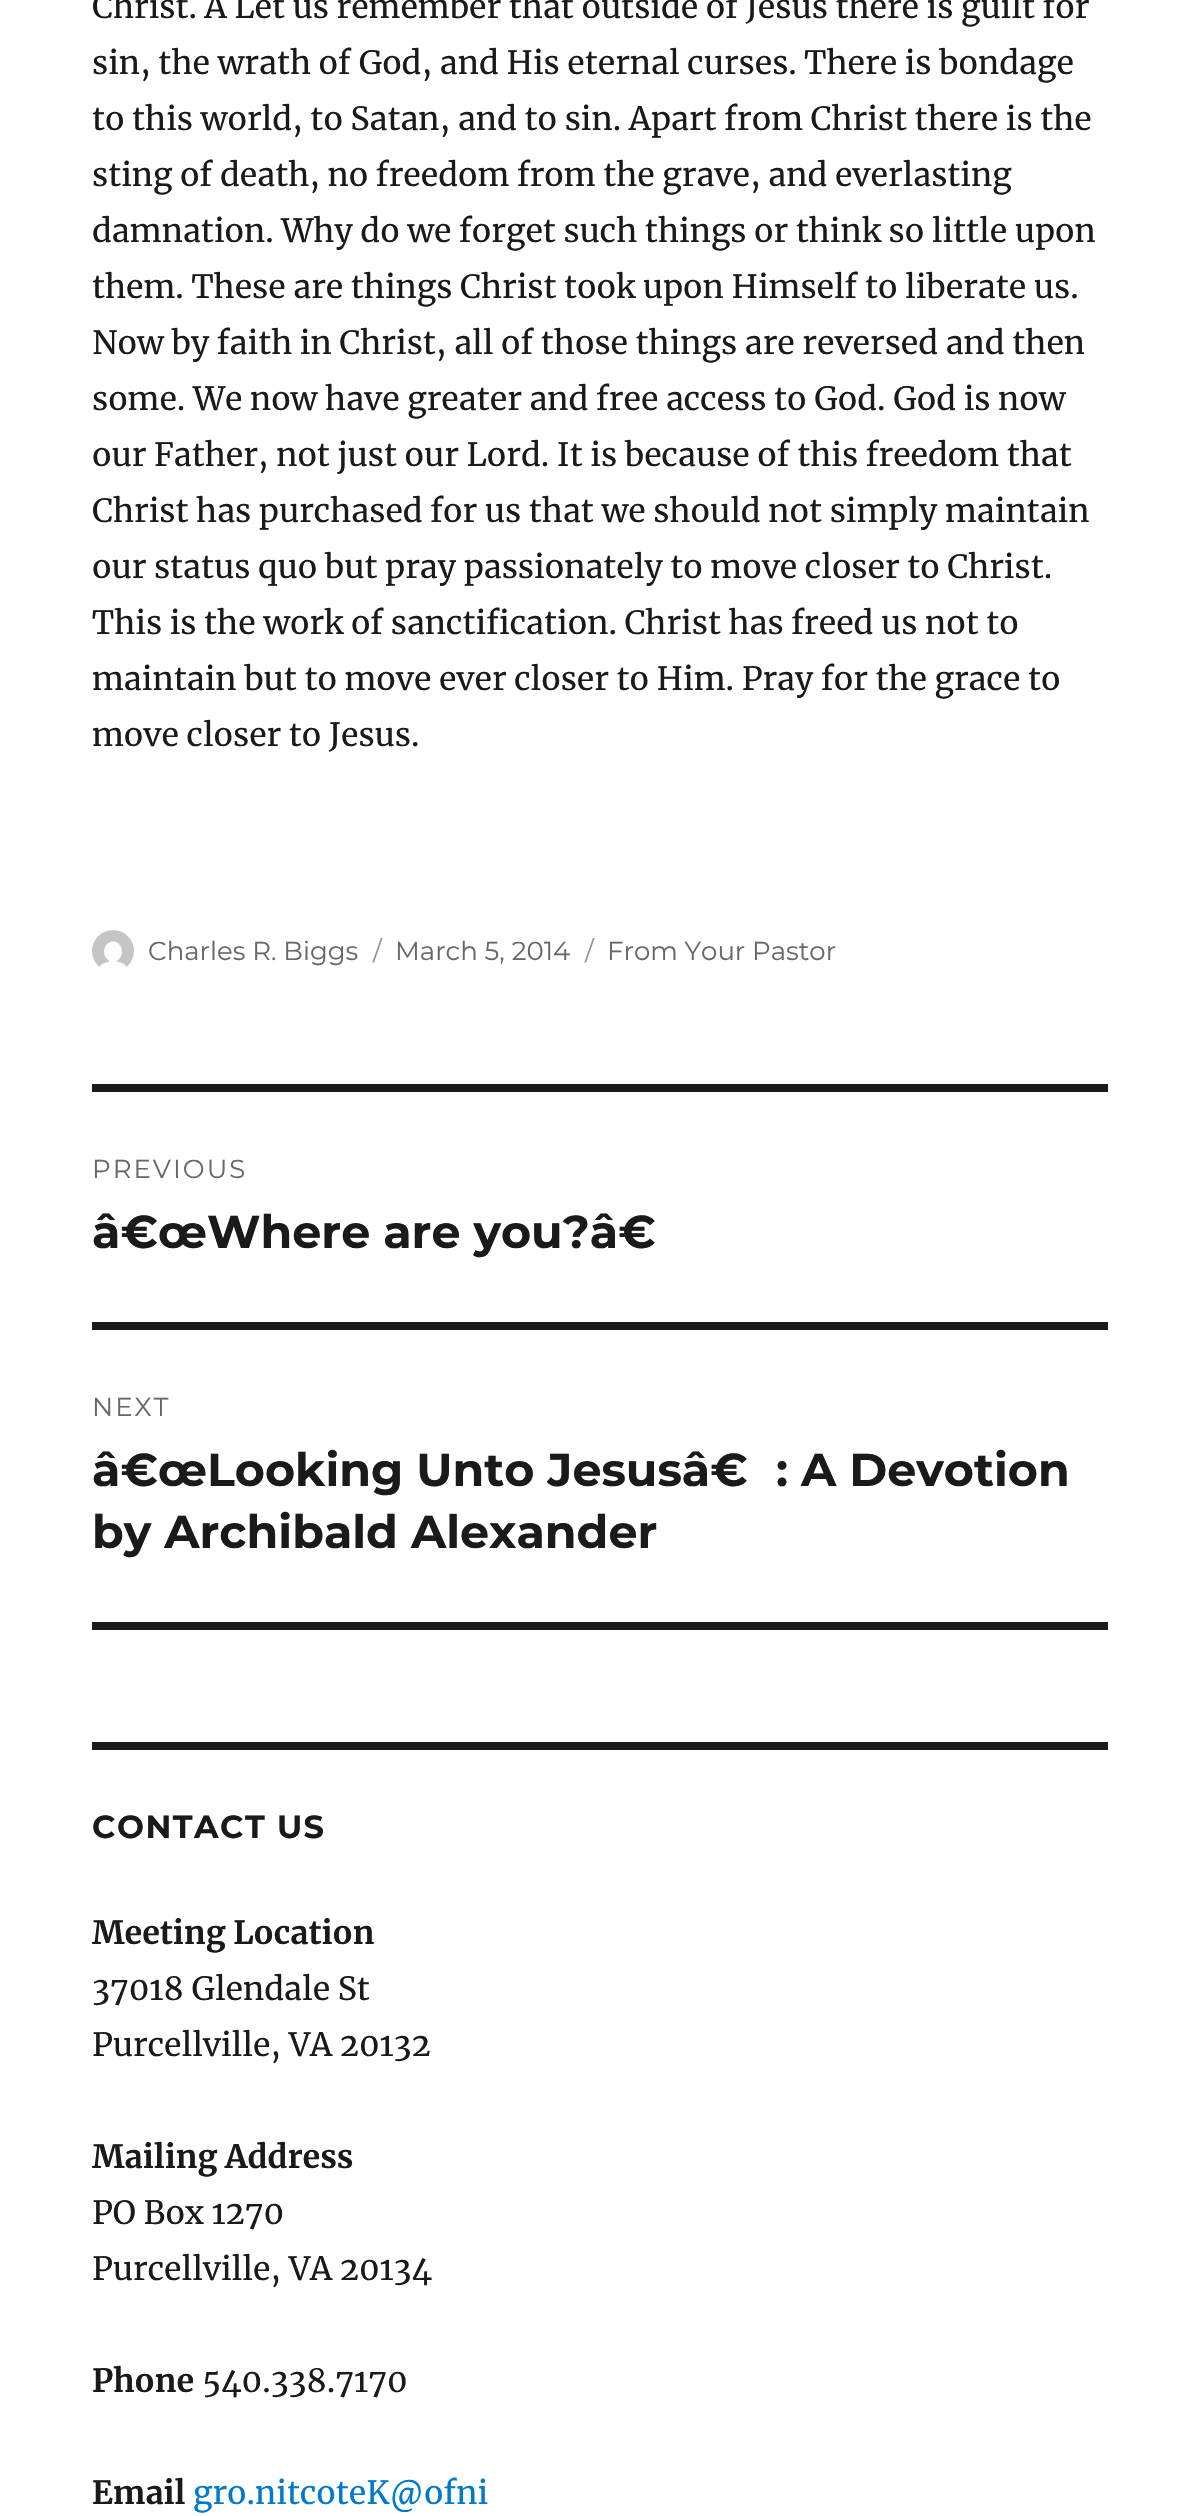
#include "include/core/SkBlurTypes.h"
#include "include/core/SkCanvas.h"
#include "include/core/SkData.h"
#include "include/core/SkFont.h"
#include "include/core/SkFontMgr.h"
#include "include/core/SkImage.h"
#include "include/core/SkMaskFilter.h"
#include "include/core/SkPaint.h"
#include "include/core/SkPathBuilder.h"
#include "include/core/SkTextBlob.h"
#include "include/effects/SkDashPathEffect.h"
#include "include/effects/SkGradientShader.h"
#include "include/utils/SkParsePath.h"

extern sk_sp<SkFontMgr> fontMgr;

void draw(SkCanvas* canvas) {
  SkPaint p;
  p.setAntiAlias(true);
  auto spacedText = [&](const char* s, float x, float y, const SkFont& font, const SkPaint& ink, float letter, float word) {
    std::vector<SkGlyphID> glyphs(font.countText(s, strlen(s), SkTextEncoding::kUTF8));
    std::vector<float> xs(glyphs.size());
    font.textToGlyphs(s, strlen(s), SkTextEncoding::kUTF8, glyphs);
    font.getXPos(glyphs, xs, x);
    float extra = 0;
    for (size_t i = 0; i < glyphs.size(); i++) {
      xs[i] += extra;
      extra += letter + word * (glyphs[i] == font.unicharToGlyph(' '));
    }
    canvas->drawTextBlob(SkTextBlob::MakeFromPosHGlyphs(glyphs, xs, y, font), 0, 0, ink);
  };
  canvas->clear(SK_ColorWHITE);
  canvas->drawImageRect(SkImages::DeferredFromEncodedData(SkData::MakeFromFileName("images/1.png")), SkRect::MakeLTRB(92, 930, 134, 968), SkSamplingOptions());
  p.setColor(SkColorSetRGB(26, 26, 26));
  canvas->drawRect(SkRect::MakeLTRB(92, 1084, 1108, 1092), p);
  canvas->drawRect(SkRect::MakeLTRB(92, 1622, 1108, 1630), p);
  canvas->drawRect(SkRect::MakeLTRB(92, 1322, 1108, 1330), p);
  canvas->drawRect(SkRect::MakeLTRB(92, 1742, 1108, 1750), p);
  SkFont font1(fontMgr->matchFamilyStyle("Merriweather", SkFontStyle::Normal()), 32);
  font1.setSubpixel(true);
  canvas->drawString("Christ. Â Let us remember that outside of Jesus there is guilt for", 92, 18, font1, p);
  canvas->drawString("sin, the wrath of God, and His eternal curses. There is bondage", 92, 74, font1, p);
  canvas->drawString("to this world, to Satan, and to sin. Apart from Christ there is the", 92, 130, font1, p);
  canvas->drawString("sting of death, no freedom from the grave, and everlasting", 92, 186, font1, p);
  canvas->drawString("damnation. Why do we forget such things or think so little upon", 92, 242, font1, p);
  canvas->drawString("them. These are things Christ took upon Himself to liberate us.", 92, 298, font1, p);
  canvas->drawString("Now by faith in Christ, all of those things are reversed and then", 92, 354, font1, p);
  canvas->drawString("some. We now have greater and free access to God. God is now", 92, 410, font1, p);
  canvas->drawString("our Father, not just our Lord. It is because of this freedom that", 92, 466, font1, p);
  canvas->drawString("Christ has purchased for us that we should not simply maintain", 92, 522, font1, p);
  canvas->drawString("our status quo but pray passionately to move closer to Christ.", 92, 578, font1, p);
  canvas->drawString("This is the work of sanctification. Christ has freed us not to", 92, 634, font1, p);
  canvas->drawString("maintain but to move ever closer to Him. Pray for the grace to", 92, 690, font1, p);
  canvas->drawString("move closer to Jesus.", 92, 746, font1, p);
  SkFont font2(fontMgr->matchFamilyStyle("Montserrat", SkFontStyle(100, SkFontStyle::kNormal_Width, SkFontStyle::kUpright_Slant)), 26);
  font2.setSubpixel(true);
  p.setColor(SkColorSetRGB(104, 104, 104));
  canvas->drawString("Charles R. Biggs", 148, 960, font2, p);
  p.setColor(SkColorSetRGB(149, 149, 149));
  canvas->drawString("/", 373, 960, font2, p);
  p.setColor(SkColorSetRGB(104, 104, 104));
  canvas->drawString("March 5, 2014", 395, 960, font2, p);
  p.setColor(SkColorSetRGB(149, 149, 149));
  canvas->drawString("/", 585, 960, font2, p);
  p.setColor(SkColorSetRGB(104, 104, 104));
  canvas->drawString("From Your Pastor", 607, 960, font2, p);
  spacedText("PREVIOUS", 92, 1178, font2, p, 2, 0);
  SkFont font3(fontMgr->matchFamilyStyle("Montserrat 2", SkFontStyle(100, SkFontStyle::kNormal_Width, SkFontStyle::kUpright_Slant)), 46);
  font3.setSubpixel(true);
  p.setColor(SkColorSetRGB(26, 26, 26));
  canvas->drawString("â€œWhere are you?â€", 92, 1248, font3, p);
  p.setColor(SkColorSetRGB(104, 104, 104));
  spacedText("NEXT", 92, 1416, font2, p, 2, 0);
  p.setColor(SkColorSetRGB(26, 26, 26));
  canvas->drawString("â€œLooking Unto Jesusâ€", 92, 1486, font3, p);
  canvas->drawString(": A Devotion", 776, 1486, font3, p);
  canvas->drawString("by Archibald Alexander", 92, 1548, font3, p);
  SkFont font4(fontMgr->matchFamilyStyle("Montserrat 2", SkFontStyle(100, SkFontStyle::kNormal_Width, SkFontStyle::kUpright_Slant)), 32);
  font4.setSubpixel(true);
  spacedText("CONTACT US", 92, 1838, font4, p, 1.5f, 0);
  SkFont font5(fontMgr->matchFamilyStyle("Merriweather", SkFontStyle::Bold()), 32);
  font5.setSubpixel(true);
  canvas->drawString("Meeting Location", 92, 1944, font5, p);
  canvas->drawString("37018 Glendale St", 92, 2000, font1, p);
  canvas->drawString("Purcellville, VA 20132", 92, 2056, font1, p);
  canvas->drawString("Mailing Address", 92, 2168, font5, p);
  canvas->drawString("PO Box 1270", 92, 2224, font1, p);
  canvas->drawString("Purcellville, VA 20134", 92, 2280, font1, p);
  canvas->drawString("Phone", 92, 2392, font5, p);
  canvas->drawString("540.338.7170", 202, 2392, font1, p);
  canvas->drawString("Email", 92, 2504, font5, p);
  p.setColor(SkColorSetRGB(0, 122, 204));
  canvas->drawString("gro.nitcoteK@ofni", 193, 2504, font1, p);
}
